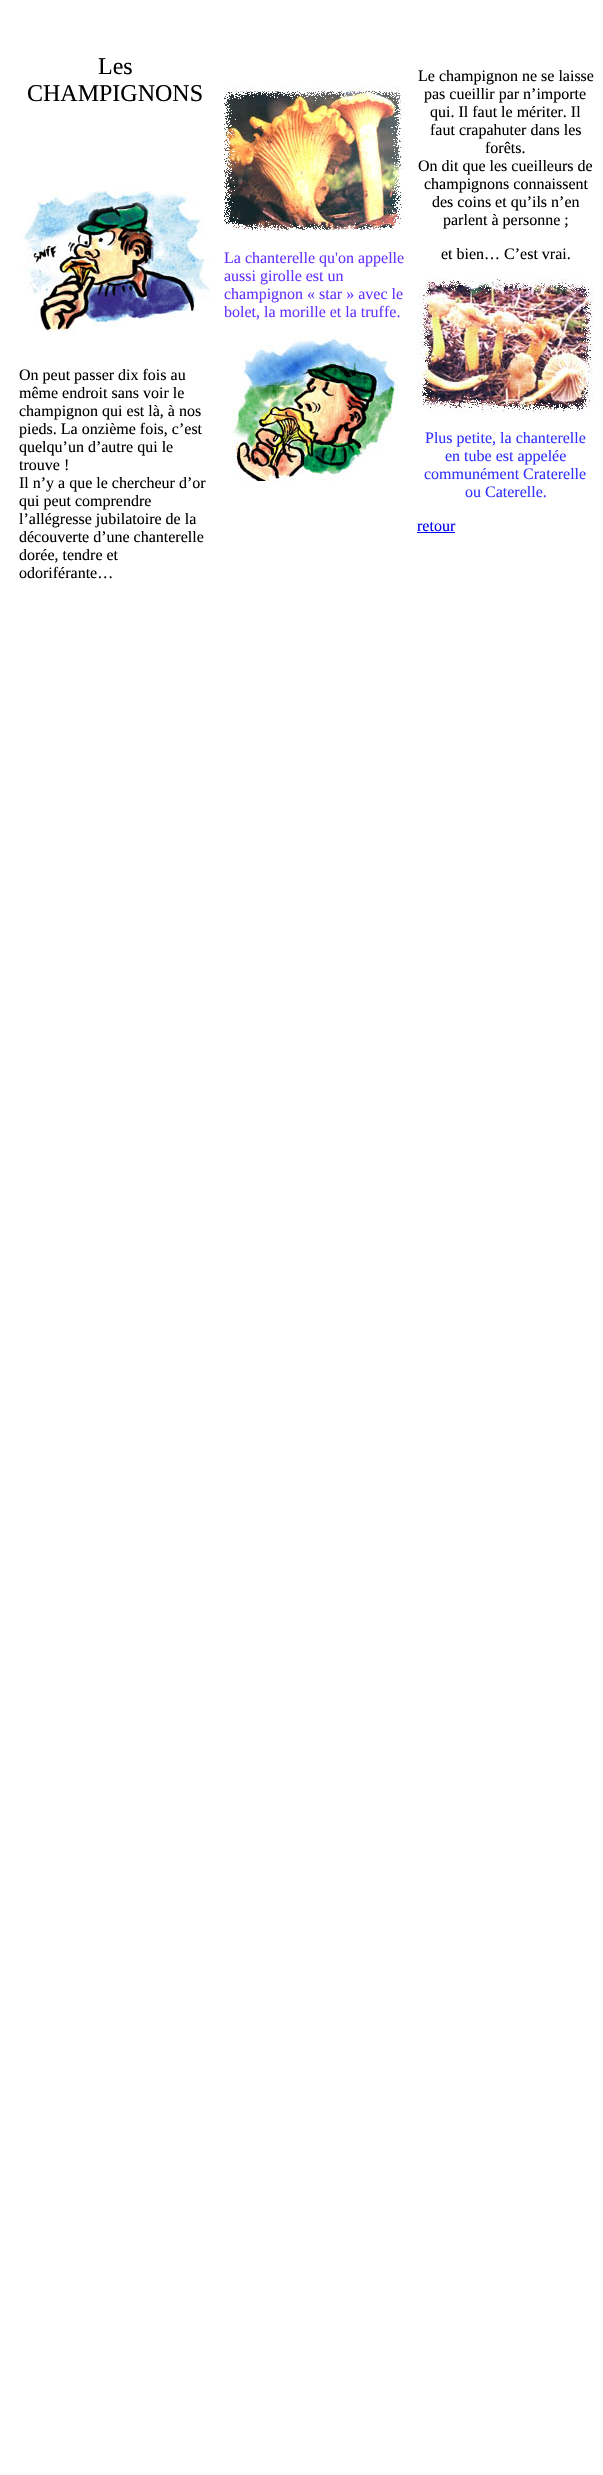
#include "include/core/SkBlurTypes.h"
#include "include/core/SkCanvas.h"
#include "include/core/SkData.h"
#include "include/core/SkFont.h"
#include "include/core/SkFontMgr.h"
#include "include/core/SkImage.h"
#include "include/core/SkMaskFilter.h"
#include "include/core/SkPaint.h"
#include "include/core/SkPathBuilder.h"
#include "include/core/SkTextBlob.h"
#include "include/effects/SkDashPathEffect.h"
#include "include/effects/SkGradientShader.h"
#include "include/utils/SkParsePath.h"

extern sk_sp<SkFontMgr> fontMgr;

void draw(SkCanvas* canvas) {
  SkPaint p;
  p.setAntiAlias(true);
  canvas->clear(SK_ColorWHITE);
  canvas->drawImageRect(SkImages::DeferredFromEncodedData(SkData::MakeFromFileName("images/1.png")), SkRect::MakeLTRB(19, 191, 211, 332), SkSamplingOptions());
  canvas->drawImageRect(SkImages::DeferredFromEncodedData(SkData::MakeFromFileName("images/2.png")), SkRect::MakeLTRB(224, 87, 405, 231), SkSamplingOptions());
  canvas->drawImageRect(SkImages::DeferredFromEncodedData(SkData::MakeFromFileName("images/3.png")), SkRect::MakeLTRB(232, 337, 398, 481), SkSamplingOptions());
  canvas->drawImageRect(SkImages::DeferredFromEncodedData(SkData::MakeFromFileName("images/4.png")), SkRect::MakeLTRB(417, 279, 593, 413), SkSamplingOptions());
  p.setColor(SkColorSetRGB(0, 0, 238));
  canvas->drawRect(SkRect::MakeLTRB(417, 532, 455, 533), p);
  SkFont font1(fontMgr->matchFamilyStyle("Liberation Serif", SkFontStyle::Normal()), 24);
  font1.setSubpixel(true);
  p.setColor(SK_ColorBLACK);
  canvas->drawString("Les", 98, 74, font1, p);
  canvas->drawString("CHAMPIGNONS", 27, 101, font1, p);
  SkFont font2(fontMgr->matchFamilyStyle("Liberation Serif", SkFontStyle::Normal()), 16);
  font2.setSubpixel(true);
  canvas->drawString("On peut passer dix fois au", 19, 380, font2, p);
  canvas->drawString("même endroit sans voir le", 19, 398, font2, p);
  canvas->drawString("champignon qui est là, à nos", 19, 416, font2, p);
  canvas->drawString("pieds. La onzième fois, c’est", 19, 434, font2, p);
  canvas->drawString("quelqu’un d’autre qui le", 19, 452, font2, p);
  canvas->drawString("trouve !", 19, 470, font2, p);
  canvas->drawString("Il n’y a que le chercheur d’or", 19, 488, font2, p);
  canvas->drawString("qui peut comprendre", 19, 506, font2, p);
  canvas->drawString("l’allégresse jubilatoire de la", 19, 524, font2, p);
  canvas->drawString("découverte d’une chanterelle", 19, 542, font2, p);
  canvas->drawString("dorée, tendre et", 19, 560, font2, p);
  canvas->drawString("odoriférante…", 19, 578, font2, p);
  p.setColor(SkColorSetRGB(102, 51, 255));
  canvas->drawString("La chanterelle qu'on appelle", 224, 263, font2, p);
  canvas->drawString("aussi girolle est un", 224, 281, font2, p);
  canvas->drawString("champignon « star » avec le", 224, 299, font2, p);
  canvas->drawString("bolet, la morille et la truffe.", 224, 317, font2, p);
  p.setColor(SK_ColorBLACK);
  canvas->drawString("Le champignon ne se laisse", 418, 81, font2, p);
  canvas->drawString("pas cueillir par n’importe", 424, 99, font2, p);
  canvas->drawString("qui. Il faut le mériter. Il", 430, 117, font2, p);
  canvas->drawString("faut crapahuter dans les", 430, 135, font2, p);
  canvas->drawString("forêts.", 485, 153, font2, p);
  canvas->drawString("On dit que les cueilleurs de", 418, 171, font2, p);
  canvas->drawString("champignons connaissent", 424, 189, font2, p);
  canvas->drawString("des coins et qu’ils n’en", 432, 207, font2, p);
  canvas->drawString("parlent à personne ;", 443, 225, font2, p);
  canvas->drawString("et bien… C’est vrai.", 441, 259, font2, p);
  p.setColor(SkColorSetRGB(51, 51, 255));
  canvas->drawString("Plus petite, la chanterelle", 425, 443, font2, p);
  canvas->drawString("en tube est appelée", 445, 461, font2, p);
  canvas->drawString("communément Craterelle", 424, 479, font2, p);
  canvas->drawString("ou Caterelle.", 465, 497, font2, p);
  p.setColor(SkColorSetRGB(0, 0, 238));
  canvas->drawString("retour", 417, 531, font2, p);
}
